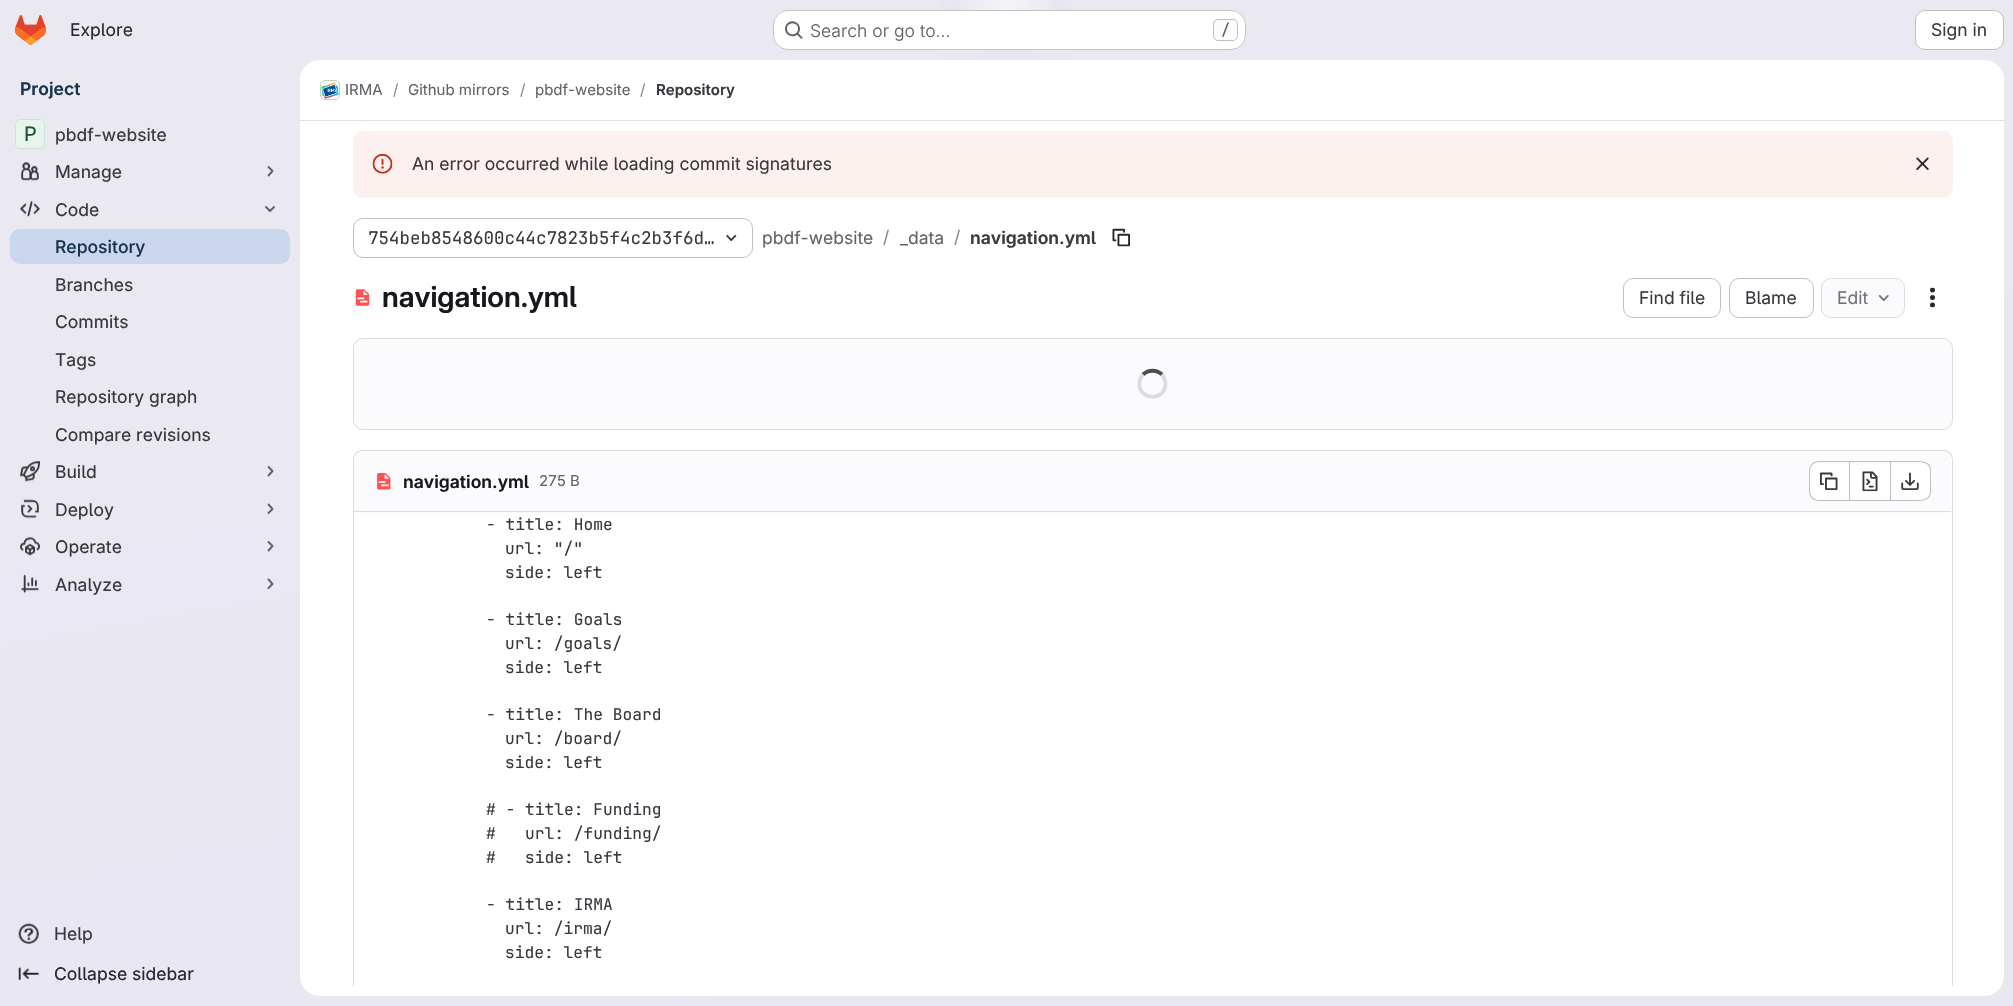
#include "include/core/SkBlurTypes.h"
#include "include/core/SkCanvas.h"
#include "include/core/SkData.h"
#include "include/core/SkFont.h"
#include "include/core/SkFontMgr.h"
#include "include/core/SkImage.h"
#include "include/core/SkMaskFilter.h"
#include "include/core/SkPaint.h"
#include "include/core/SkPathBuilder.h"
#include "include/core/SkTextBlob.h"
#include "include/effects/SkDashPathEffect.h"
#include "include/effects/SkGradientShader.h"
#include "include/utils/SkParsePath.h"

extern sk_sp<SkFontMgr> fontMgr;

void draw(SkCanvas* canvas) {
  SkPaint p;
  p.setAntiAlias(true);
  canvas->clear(SK_ColorWHITE);
  {
    const SkColor colors[] = {SkColorSetRGB(232, 230, 240), SkColorSetRGB(234, 233, 242)};
    const float stops[] = {0, 0.7f};
    const SkPoint ends[] = {{1123, 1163}, {890, -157}};
    p.setShader(SkGradientShader::MakeLinear(ends, colors, stops, 2, SkTileMode::kClamp));
    p.setAlpha(255);
  }
  canvas->drawRect(SkRect::MakeLTRB(0, 0, 2013, 1006), p);
  {
    const SkColor colors[] = {SkColorSetRGB(228, 226, 237), SkColorSetARGB(0, 228, 226, 237)};
    const float stops[] = {0, 0.09f};
    SkMatrix m = SkMatrix::Translate(1007, 0).preScale(1007, 1006);
    p.setShader(SkGradientShader::MakeRadial({0, 0}, 1, colors, stops, 2, SkTileMode::kClamp, 0, &m));
    p.setAlpha(255);
  }
  canvas->drawRect(SkRect::MakeLTRB(941, 0, 1072, 60), p);
  {
    const SkColor colors[] = {SkColorSetRGB(228, 226, 236), SkColorSetARGB(0, 228, 226, 236)};
    const float stops[] = {0, 0.06f};
    SkMatrix m = SkMatrix::Translate(1007, 0).preScale(1007, 1006);
    p.setShader(SkGradientShader::MakeRadial({0, 0}, 1, colors, stops, 2, SkTileMode::kClamp, 0, &m));
    p.setAlpha(255);
  }
  canvas->drawRect(SkRect::MakeLTRB(1012, 0, 1013, 1), p);
  {
    const SkColor colors[] = {SkColorSetARGB(153, 255, 255, 255), SkColorSetARGB(0, 255, 255, 255)};
    const float stops[] = {0, 0.04f};
    p.setShader(SkGradientShader::MakeRadial({1007, 0}, 1423, colors, stops, 2, SkTileMode::kClamp));
    p.setAlpha(255);
  }
  canvas->drawRect(SkRect::MakeLTRB(960, 0, 1054, 47), p);
  canvas->drawImageRect(SkImages::DeferredFromEncodedData(SkData::MakeFromFileName("images/1.png")), SkRect::MakeLTRB(15, 15, 46, 45), SkSamplingOptions());
  p.setShader(nullptr);
  p.setColor(SK_ColorWHITE);
  canvas->drawRoundRect(SkRect::MakeLTRB(773, 10, 1246, 50), 15, 15, p);
  p.setStyle(SkPaint::kStroke_Style);
  p.setStrokeWidth(1);
  p.setColor(SkColorSetARGB(61, 5, 5, 6));
  canvas->drawRoundRect(SkRect::MakeLTRB(773.5f, 10.5f, 1245.5f, 49.5f), 14.5f, 14.5f, p);
  canvas->drawImageRect(SkImages::DeferredFromEncodedData(SkData::MakeFromFileName("images/2.png")), SkRect::MakeLTRB(785, 21, 803, 39), SkSamplingOptions());
  p.setStyle(SkPaint::kFill_Style);
  p.setColor(SkColorSetRGB(251, 250, 253));
  canvas->drawRoundRect(SkRect::MakeLTRB(1213.5f, 19.5f, 1237.5f, 40.5f), 4.5f, 4.5f, p);
  p.setStyle(SkPaint::kStroke_Style);
  p.setColor(SkColorSetRGB(191, 191, 195));
  canvas->drawRoundRect(SkRect::MakeLTRB(1213.5f, 19.5f, 1237.5f, 40.5f), 4.5f, 4.5f, p);
  p.setStyle(SkPaint::kFill_Style);
  p.setColor(SK_ColorWHITE);
  canvas->drawRoundRect(SkRect::MakeLTRB(1915.5f, 10.5f, 2003.5f, 49.5f), 9.5f, 9.5f, p);
  p.setStyle(SkPaint::kStroke_Style);
  p.setColor(SkColorSetRGB(191, 191, 195));
  canvas->drawRoundRect(SkRect::MakeLTRB(1915.5f, 10.5f, 2003.5f, 49.5f), 9.5f, 9.5f, p);
  p.setStyle(SkPaint::kFill_Style);
  p.setColor(SK_ColorWHITE);
  canvas->drawRoundRect(SkRect::MakeLTRB(15, 119, 45, 149), 5, 5, p);
  p.setColor(SkColorSetARGB(61, 145, 212, 168));
  canvas->drawRoundRect(SkRect::MakeLTRB(15, 119, 45, 149), 5, 5, p);
  p.setStyle(SkPaint::kStroke_Style);
  p.setColor(SkColorSetARGB(20, 5, 5, 6));
  canvas->drawRoundRect(SkRect::MakeLTRB(15.5f, 119.5f, 44.5f, 148.5f), 4.5f, 4.5f, p);
  canvas->drawImageRect(SkImages::DeferredFromEncodedData(SkData::MakeFromFileName("images/3.png")), SkRect::MakeLTRB(21, 162, 39, 181), SkSamplingOptions());
  p.setStrokeWidth(1.9f);
  p.setStrokeCap(SkPaint::kRound_Cap);
  p.setStrokeJoin(SkPaint::kRound_Join);
  p.setColor(SkColorSetRGB(98, 97, 104));
  canvas->drawPath(SkPathBuilder().moveTo(268.5f, 167).lineTo(272.5f, 171).lineTo(268.5f, 175.5f).detach(), p);
  canvas->drawImageRect(SkImages::DeferredFromEncodedData(SkData::MakeFromFileName("images/4.png")), SkRect::MakeLTRB(20, 201, 40, 217), SkSamplingOptions());
  canvas->drawPath(SkPathBuilder().moveTo(274, 207).lineTo(270, 211).lineTo(266, 207).detach(), p);
  p.setStyle(SkPaint::kFill_Style);
  p.setColor(SkColorSetRGB(201, 214, 235));
  canvas->drawRoundRect(SkRect::MakeLTRB(10, 229, 290, 264), 10, 10, p);
  canvas->drawImageRect(SkImages::DeferredFromEncodedData(SkData::MakeFromFileName("images/5.png")), SkRect::MakeLTRB(20, 461, 40, 482), SkSamplingOptions());
  p.setStyle(SkPaint::kStroke_Style);
  p.setColor(SkColorSetRGB(98, 97, 104));
  canvas->drawPath(SkPathBuilder().moveTo(268.5f, 467).lineTo(272.5f, 471).lineTo(268.5f, 475.5f).detach(), p);
  canvas->drawImageRect(SkImages::DeferredFromEncodedData(SkData::MakeFromFileName("images/6.png")), SkRect::MakeLTRB(21, 499, 39, 519), SkSamplingOptions());
  canvas->drawPath(SkPathBuilder().moveTo(268.5f, 504.5f).lineTo(272.5f, 509).lineTo(268.5f, 513).detach(), p);
  canvas->drawImageRect(SkImages::DeferredFromEncodedData(SkData::MakeFromFileName("images/7.png")), SkRect::MakeLTRB(20, 537, 40, 556), SkSamplingOptions());
  canvas->drawPath(SkPathBuilder().moveTo(268.5f, 542).lineTo(272.5f, 546).lineTo(268.5f, 550.5f).detach(), p);
  canvas->drawImageRect(SkImages::DeferredFromEncodedData(SkData::MakeFromFileName("images/8.png")), SkRect::MakeLTRB(21, 574, 39, 594), SkSamplingOptions());
  canvas->drawPath(SkPathBuilder().moveTo(268.5f, 579.5f).lineTo(272.5f, 584).lineTo(268.5f, 588).detach(), p);
  canvas->drawImageRect(SkImages::DeferredFromEncodedData(SkData::MakeFromFileName("images/9.png")), SkRect::MakeLTRB(18, 923, 39, 944), SkSamplingOptions());
  canvas->drawImageRect(SkImages::DeferredFromEncodedData(SkData::MakeFromFileName("images/10.png")), SkRect::MakeLTRB(18, 966, 39, 981), SkSamplingOptions());
  p.setStyle(SkPaint::kFill_Style);
  p.setColor(SK_ColorWHITE);
  canvas->drawRoundRect(SkRect::MakeLTRB(300, 60, 2004, 996), 20, 20, p);
  canvas->drawPath(SkPathBuilder().moveTo(320, 60).lineTo(1984, 60).cubicTo(1995, 60, 2004, 69, 2004, 80).lineTo(2004, 121).lineTo(300, 121).lineTo(300, 80).cubicTo(300, 69, 309, 60, 320, 60).close().detach(), p);
  p.setColor(SkColorSetRGB(225, 223, 236));
  canvas->drawRect(SkRect::MakeLTRB(300, 120, 2004, 121), p);
  p.setStyle(SkPaint::kStroke_Style);
  p.setStrokeWidth(1);
  p.setStrokeCap(SkPaint::kButt_Cap);
  p.setStrokeJoin(SkPaint::kMiter_Join);
  p.setColor(SkColorSetRGB(220, 220, 222));
  canvas->drawRoundRect(SkRect::MakeLTRB(320.5f, 80.5f, 339.5f, 99.5f), 4.5f, 4.5f, p);
  canvas->drawImageRect(SkImages::DeferredFromEncodedData(SkData::MakeFromFileName("images/11.png")), SkRect::MakeLTRB(321, 82, 339, 99), SkSamplingOptions());
  p.setColor(SkColorSetARGB(20, 5, 5, 6));
  canvas->drawRoundRect(SkRect::MakeLTRB(320.5f, 80.5f, 339.5f, 99.5f), 4.5f, 4.5f, p);
  p.setStyle(SkPaint::kFill_Style);
  p.setColor(SkColorSetRGB(252, 241, 239));
  canvas->drawRoundRect(SkRect::MakeLTRB(353, 131, 1953, 198), 10, 10, p);
  canvas->drawImageRect(SkImages::DeferredFromEncodedData(SkData::MakeFromFileName("images/12.png")), SkRect::MakeLTRB(372, 153, 393, 174), SkSamplingOptions());
  canvas->drawImageRect(SkImages::DeferredFromEncodedData(SkData::MakeFromFileName("images/13.png")), SkRect::MakeLTRB(1916, 157, 1929, 170), SkSamplingOptions());
  p.setStyle(SkPaint::kStroke_Style);
  p.setColor(SkColorSetRGB(191, 191, 195));
  canvas->drawRoundRect(SkRect::MakeLTRB(353.5f, 218.5f, 752.5f, 257.5f), 9.5f, 9.5f, p);
  canvas->drawImageRect(SkImages::DeferredFromEncodedData(SkData::MakeFromFileName("images/14.png")), SkRect::MakeLTRB(726, 235, 737, 241), SkSamplingOptions());
  canvas->drawImageRect(SkImages::DeferredFromEncodedData(SkData::MakeFromFileName("images/15.png")), SkRect::MakeLTRB(1112, 228, 1130, 247), SkSamplingOptions());
  canvas->drawImageRect(SkImages::DeferredFromEncodedData(SkData::MakeFromFileName("images/16.png")), SkRect::MakeLTRB(355, 289, 370, 306), SkSamplingOptions());
  canvas->drawRoundRect(SkRect::MakeLTRB(1623.5f, 278.5f, 1720.5f, 317.5f), 9.5f, 9.5f, p);
  canvas->drawRoundRect(SkRect::MakeLTRB(1729.5f, 278.5f, 1813.5f, 317.5f), 9.5f, 9.5f, p);
  p.setStyle(SkPaint::kFill_Style);
  p.setColor(SkColorSetRGB(251, 250, 253));
  canvas->drawRoundRect(SkRect::MakeLTRB(1821.5f, 278.5f, 1904.5f, 317.5f), 9.5f, 9.5f, p);
  p.setStyle(SkPaint::kStroke_Style);
  p.setColor(SkColorSetRGB(220, 220, 222));
  canvas->drawRoundRect(SkRect::MakeLTRB(1821.5f, 278.5f, 1904.5f, 317.5f), 9.5f, 9.5f, p);
  canvas->drawImageRect(SkImages::DeferredFromEncodedData(SkData::MakeFromFileName("images/17.png")), SkRect::MakeLTRB(1878, 295, 1889, 301), SkSamplingOptions());
  canvas->drawImageRect(SkImages::DeferredFromEncodedData(SkData::MakeFromFileName("images/18.png")), SkRect::MakeLTRB(1930, 287, 1935, 308), SkSamplingOptions());
  p.setStyle(SkPaint::kFill_Style);
  p.setColor(SkColorSetRGB(251, 250, 253));
  canvas->drawRoundRect(SkRect::MakeLTRB(353.5f, 338.5f, 1952.5f, 429.5f), 9.5f, 9.5f, p);
  p.setStyle(SkPaint::kStroke_Style);
  p.setColor(SkColorSetRGB(220, 220, 222));
  canvas->drawRoundRect(SkRect::MakeLTRB(353.5f, 338.5f, 1952.5f, 429.5f), 9.5f, 9.5f, p);
  p.setStrokeWidth(3.8f);
  p.setColor(SkColorSetRGB(76, 75, 81));
  canvas->drawPath(SkPathBuilder().moveTo(1143, 374.5f).cubicTo(1148.5f, 369.5f, 1156.5f, 369.5f, 1162, 374.5f).detach(), p);
  p.setColor(SkColorSetRGB(220, 220, 222));
  canvas->drawPath(SkPathBuilder().moveTo(1162, 374.5f).cubicTo(1164, 377, 1165.5f, 380.5f, 1165.5f, 384).cubicTo(1165.5f, 399.5f, 1142.5f, 401.5f, 1139.5f, 386.5f).cubicTo(1139, 382, 1140, 377.5f, 1143, 374.5f).detach(), p);
  canvas->save();
  canvas->clipRect(SkRect::MakeLTRB(300, 121, 2004, 986));
  p.setStyle(SkPaint::kFill_Style);
  canvas->drawPath(SkPathBuilder().moveTo(363, 450).cubicTo(357, 450, 353, 454, 353, 460).lineTo(353, 996).lineTo(354, 996).lineTo(354, 460).cubicTo(354, 455, 358, 451, 363, 451).lineTo(1943, 451).cubicTo(1948, 451, 1952, 455, 1952, 460).lineTo(1952, 996).lineTo(1953, 996).lineTo(1953, 460).cubicTo(1953, 454, 1949, 450, 1943, 450).close().detach(), p);
  canvas->restore();
  p.setColor(SkColorSetRGB(251, 250, 253));
  canvas->drawPath(SkPathBuilder().moveTo(363, 451).lineTo(1942, 451).cubicTo(1947, 451, 1951, 455, 1951, 460).lineTo(1951, 513).lineTo(354, 513).lineTo(354, 460).cubicTo(354, 455, 358, 451, 363, 451).close().detach(), p);
  p.setColor(SkColorSetRGB(220, 220, 222));
  canvas->drawRect(SkRect::MakeLTRB(354, 511, 1951, 512), p);
  canvas->drawImageRect(SkImages::DeferredFromEncodedData(SkData::MakeFromFileName("images/19.png")), SkRect::MakeLTRB(377, 473, 391, 490), SkSamplingOptions());
  p.setColor(SK_ColorWHITE);
  canvas->drawPath(SkPathBuilder().moveTo(1819, 463).lineTo(1849, 463).lineTo(1849, 500).lineTo(1819, 500).cubicTo(1814, 500, 1810, 496, 1810, 491).lineTo(1810, 472).cubicTo(1810, 467, 1814, 463, 1819, 463).close().detach(), p);
  p.setColor(SkColorSetRGB(191, 191, 195));
  canvas->drawPath(SkPathBuilder(SkPathFillType::kEvenOdd).moveTo(1819, 461).lineTo(1849, 461).lineTo(1849, 501).lineTo(1819, 501).cubicTo(1813, 501, 1809, 497, 1809, 491).lineTo(1809, 471).cubicTo(1809, 466, 1813, 461, 1819, 461).close().moveTo(1819, 462).lineTo(1849, 462).lineTo(1849, 500).lineTo(1819, 500).cubicTo(1814, 500, 1810, 496, 1810, 491).lineTo(1810, 471).cubicTo(1810, 466, 1814, 462, 1819, 462).close().detach(), p);
  canvas->drawImageRect(SkImages::DeferredFromEncodedData(SkData::MakeFromFileName("images/20.png")), SkRect::MakeLTRB(1820, 472, 1838, 490), SkSamplingOptions());
  p.setColor(SK_ColorWHITE);
  canvas->drawRect(SkRect::MakeLTRB(1850, 463, 1890, 500), p);
  p.setColor(SkColorSetRGB(191, 191, 195));
  canvas->drawRect(SkRect::MakeLTRB(1850, 461, 1890, 462), p);
  canvas->drawRect(SkRect::MakeLTRB(1850, 500, 1890, 501), p);
  canvas->drawRect(SkRect::MakeLTRB(1849, 461, 1850, 501), p);
  canvas->drawImageRect(SkImages::DeferredFromEncodedData(SkData::MakeFromFileName("images/21.png")), SkRect::MakeLTRB(1862, 471, 1878, 492), SkSamplingOptions());
  p.setColor(SK_ColorWHITE);
  canvas->drawPath(SkPathBuilder().moveTo(1891, 463).lineTo(1921, 463).cubicTo(1926, 463, 1930, 467, 1930, 472).lineTo(1930, 491).cubicTo(1930, 496, 1926, 500, 1921, 500).lineTo(1891, 500).close().detach(), p);
  p.setColor(SkColorSetRGB(191, 191, 195));
  canvas->drawPath(SkPathBuilder(SkPathFillType::kEvenOdd).moveTo(1891, 461).lineTo(1916, 461).cubicTo(1933, 461, 1931, 467, 1931, 481).cubicTo(1931, 495, 1933, 501, 1916, 501).lineTo(1891, 501).close().moveTo(1891, 462).lineTo(1916, 462).cubicTo(1932, 462, 1930, 468, 1930, 481).cubicTo(1930, 495, 1932, 500, 1916, 500).lineTo(1891, 500).close().detach(), p);
  canvas->drawRect(SkRect::MakeLTRB(1890, 461, 1891, 501), p);
  canvas->drawImageRect(SkImages::DeferredFromEncodedData(SkData::MakeFromFileName("images/22.png")), SkRect::MakeLTRB(1901, 472, 1919, 490), SkSamplingOptions());
  SkFont font1(fontMgr->matchFamilyStyle("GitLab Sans", SkFontStyle::Normal()), 17.5f);
  font1.setSubpixel(true);
  p.setColor(SkColorSetRGB(40, 39, 45));
  canvas->drawString("Explore", 70, 36, font1, p);
  SkFont font2(fontMgr->matchFamilyStyle("GitLab Sans", SkFontStyle(300, SkFontStyle::kNormal_Width, SkFontStyle::kUpright_Slant)), 17.5f);
  font2.setSubpixel(true);
  p.setColor(SkColorSetRGB(98, 97, 104));
  canvas->drawString("Search or go to…", 810, 37, font2, p);
  SkFont font3(fontMgr->matchFamilyStyle("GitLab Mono", SkFontStyle(500, SkFontStyle::kNormal_Width, SkFontStyle::kUpright_Slant)), 15);
  font3.setSubpixel(true);
  canvas->drawString("/", 1221, 35, font3, p);
  p.setColor(SkColorSetRGB(58, 56, 63));
  canvas->drawString("Sign in", 1931, 36, font1, p);
  SkFont font4(fontMgr->matchFamilyStyle("GitLab Sans", SkFontStyle(600, SkFontStyle::kNormal_Width, SkFontStyle::kUpright_Slant)), 17.5f);
  font4.setSubpixel(true);
  p.setColor(SkColorSetRGB(24, 51, 78));
  canvas->drawString("Project", 20, 95, font4, p);
  SkFont font5(fontMgr->matchFamilyStyle("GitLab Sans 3", SkFontStyle::Normal()), 20);
  font5.setSubpixel(true);
  p.setColor(SkColorSetRGB(34, 81, 49));
  canvas->drawString("P", 24, 141, font5, p);
  SkFont font6(fontMgr->matchFamilyStyle("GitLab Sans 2", SkFontStyle::Normal()), 17.5f);
  font6.setSubpixel(true);
  p.setColor(SkColorSetRGB(58, 56, 63));
  canvas->drawString("pbdf-website", 55, 141, font6, p);
  canvas->drawString("Manage", 55, 178, font6, p);
  canvas->drawString("Code", 55, 216, font6, p);
  SkFont font7(fontMgr->matchFamilyStyle("GitLab Sans", SkFontStyle(500, SkFontStyle::kNormal_Width, SkFontStyle::kUpright_Slant)), 17.5f);
  font7.setSubpixel(true);
  p.setColor(SkColorSetRGB(24, 51, 78));
  canvas->drawString("Repository", 55, 253, font7, p);
  p.setColor(SkColorSetRGB(58, 56, 63));
  canvas->drawString("Branches", 55, 291, font6, p);
  canvas->drawString("Commits", 55, 328, font6, p);
  canvas->drawString("Tags", 55, 366, font6, p);
  canvas->drawString("Repository graph", 55, 403, font6, p);
  canvas->drawString("Compare revisions", 55, 441, font6, p);
  canvas->drawString("Build", 55, 478, font6, p);
  canvas->drawString("Deploy", 55, 516, font6, p);
  canvas->drawString("Operate", 55, 553, font6, p);
  canvas->drawString("Analyze", 55, 591, font6, p);
  canvas->drawString("Help", 54, 940, font6, p);
  p.setColor(SkColorSetRGB(40, 39, 45));
  canvas->drawString("Collapse sidebar", 54, 980, font6, p);
  SkFont font8(fontMgr->matchFamilyStyle("GitLab Sans", SkFontStyle::Normal()), 15);
  font8.setSubpixel(true);
  p.setColor(SkColorSetRGB(98, 97, 104));
  canvas->drawString("IRMA", 345, 95, font8, p);
  p.setColor(SkColorSetRGB(137, 136, 141));
  canvas->drawString("/", 393, 95, font8, p);
  p.setColor(SkColorSetRGB(98, 97, 104));
  canvas->drawString("Github mirrors", 408, 95, font8, p);
  p.setColor(SkColorSetRGB(137, 136, 141));
  canvas->drawString("/", 520, 95, font8, p);
  p.setColor(SkColorSetRGB(98, 97, 104));
  canvas->drawString("pbdf-website", 535, 95, font8, p);
  p.setColor(SkColorSetRGB(137, 136, 141));
  canvas->drawString("/", 640, 95, font8, p);
  SkFont font9(fontMgr->matchFamilyStyle("GitLab Sans", SkFontStyle(600, SkFontStyle::kNormal_Width, SkFontStyle::kUpright_Slant)), 15);
  font9.setSubpixel(true);
  p.setColor(SkColorSetRGB(58, 56, 63));
  canvas->drawString("Repository", 656, 95, font9, p);
  canvas->drawString("An error occurred while loading commit signatures", 412, 170, font1, p);
  SkFont font10(fontMgr->matchFamilyStyle("GitLab Mono", SkFontStyle::Normal()), 17.5f);
  font10.setSubpixel(true);
  canvas->drawString("754beb8548600c44c7823b5f4c2b3f6d…", 368, 244, font10, p);
  p.setColor(SkColorSetRGB(98, 97, 104));
  canvas->drawString("pbdf-website", 762, 244, font1, p);
  p.setColor(SkColorSetRGB(137, 136, 141));
  canvas->drawString("/", 883, 243, font1, p);
  p.setColor(SkColorSetRGB(98, 97, 104));
  canvas->drawString("_data", 900, 244, font1, p);
  p.setColor(SkColorSetRGB(137, 136, 141));
  canvas->drawString("/", 954, 243, font1, p);
  p.setColor(SkColorSetRGB(58, 56, 63));
  canvas->drawString("navigation.yml", 970, 244, font4, p);
  SkFont font11(fontMgr->matchFamilyStyle("GitLab Sans 2", SkFontStyle(600, SkFontStyle::kNormal_Width, SkFontStyle::kUpright_Slant)), 28.75f);
  font11.setSubpixel(true);
  p.setColor(SkColorSetRGB(24, 23, 29));
  canvas->drawString("navigation.yml", 382, 307, font11, p);
  p.setColor(SkColorSetRGB(58, 56, 63));
  canvas->drawString("Find file", 1639, 304, font1, p);
  canvas->drawString("Blame", 1745, 304, font1, p);
  p.setColor(SkColorSetRGB(115, 114, 120));
  canvas->drawString("Edit", 1837, 304, font1, p);
  p.setColor(SkColorSetRGB(24, 23, 29));
  canvas->drawString("navigation.yml", 403, 488, font4, p);
  p.setColor(SkColorSetRGB(98, 97, 104));
  canvas->drawString("275 B", 539, 486, font8, p);
  SkFont font12(fontMgr->matchFamilyStyle("GitLab Mono", SkFontStyle::Normal()), 16.25f);
  font12.setSubpixel(true);
  p.setColor(SkColorSetRGB(58, 56, 63));
  canvas->drawString("- title: Home", 486, 530, font12, p);
  canvas->drawString("url: \"/\"", 505, 554, font12, p);
  canvas->drawString("side: left", 505, 578, font12, p);
  canvas->drawString("- title: Goals", 486, 625, font12, p);
  canvas->drawString("url: /goals/", 505, 649, font12, p);
  canvas->drawString("side: left", 505, 673, font12, p);
  canvas->drawString("- title: The Board", 486, 720, font12, p);
  canvas->drawString("url: /board/", 505, 744, font12, p);
  canvas->drawString("side: left", 505, 768, font12, p);
  canvas->drawString("# - title: Funding", 486, 815, font12, p);
  canvas->drawString("#   url: /funding/", 486, 839, font12, p);
  canvas->drawString("#   side: left", 486, 863, font12, p);
  canvas->drawString("- title: IRMA", 486, 910, font12, p);
  canvas->drawString("url: /irma/", 505, 934, font12, p);
  canvas->drawString("side: left", 505, 958, font12, p);
}
